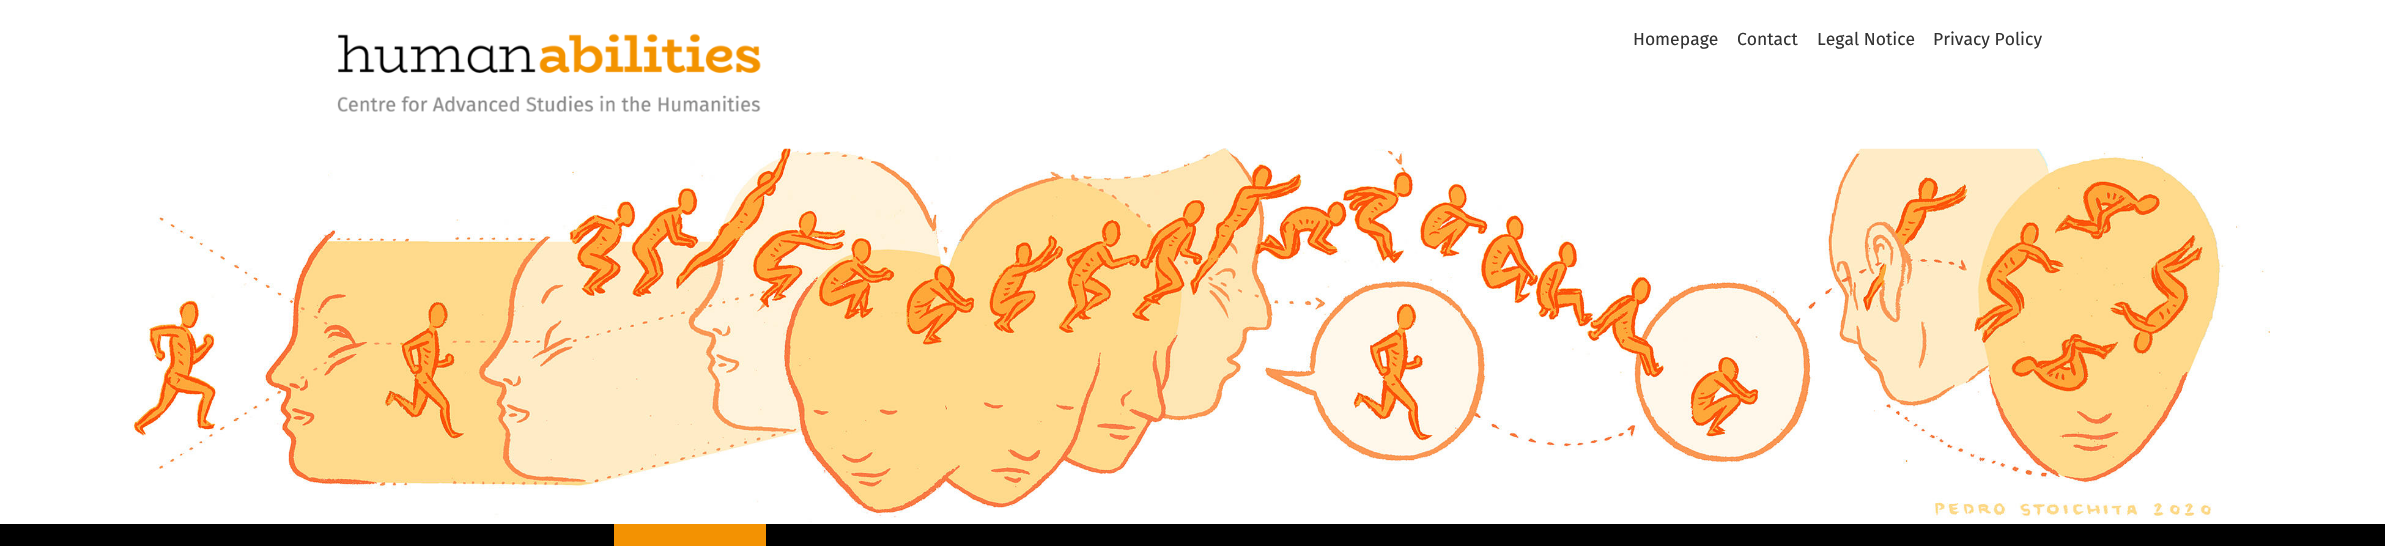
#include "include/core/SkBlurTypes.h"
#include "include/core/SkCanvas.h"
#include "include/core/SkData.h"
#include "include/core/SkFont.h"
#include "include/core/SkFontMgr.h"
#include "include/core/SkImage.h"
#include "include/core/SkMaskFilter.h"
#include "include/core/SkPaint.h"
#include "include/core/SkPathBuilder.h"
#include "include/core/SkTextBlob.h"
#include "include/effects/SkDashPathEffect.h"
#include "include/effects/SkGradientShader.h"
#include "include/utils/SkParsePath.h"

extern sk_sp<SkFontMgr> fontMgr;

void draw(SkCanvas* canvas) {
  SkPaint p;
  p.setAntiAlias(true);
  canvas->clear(SK_ColorWHITE);
  canvas->drawImageRect(SkImages::DeferredFromEncodedData(SkData::MakeFromFileName("images/1.png")), SkRect::MakeLTRB(337, 33, 761, 112), SkSamplingOptions());
  canvas->drawImageRect(SkImages::DeferredFromEncodedData(SkData::MakeFromFileName("images/2.png")), SkRect::MakeLTRB(0, 148, 2385, 524), SkSamplingOptions());
  p.setColor(SK_ColorBLACK);
  canvas->drawRect(SkRect::MakeLTRB(0, 524, 2385, 546), p);
  p.setColor(SkColorSetRGB(243, 146, 2));
  canvas->drawRect(SkRect::MakeLTRB(614, 524, 766, 546), p);
  SkFont font1(fontMgr->matchFamilyStyle("Fira Sans", SkFontStyle::Normal()), 17.5f);
  font1.setSubpixel(true);
  p.setColor(SkColorSetRGB(51, 51, 51));
  canvas->drawString("Homepage", 1633, 45, font1, p);
  canvas->drawString("Contact", 1737, 45, font1, p);
  canvas->drawString("Legal Notice", 1817, 45, font1, p);
  canvas->drawString("Privacy Policy", 1933, 45, font1, p);
}
